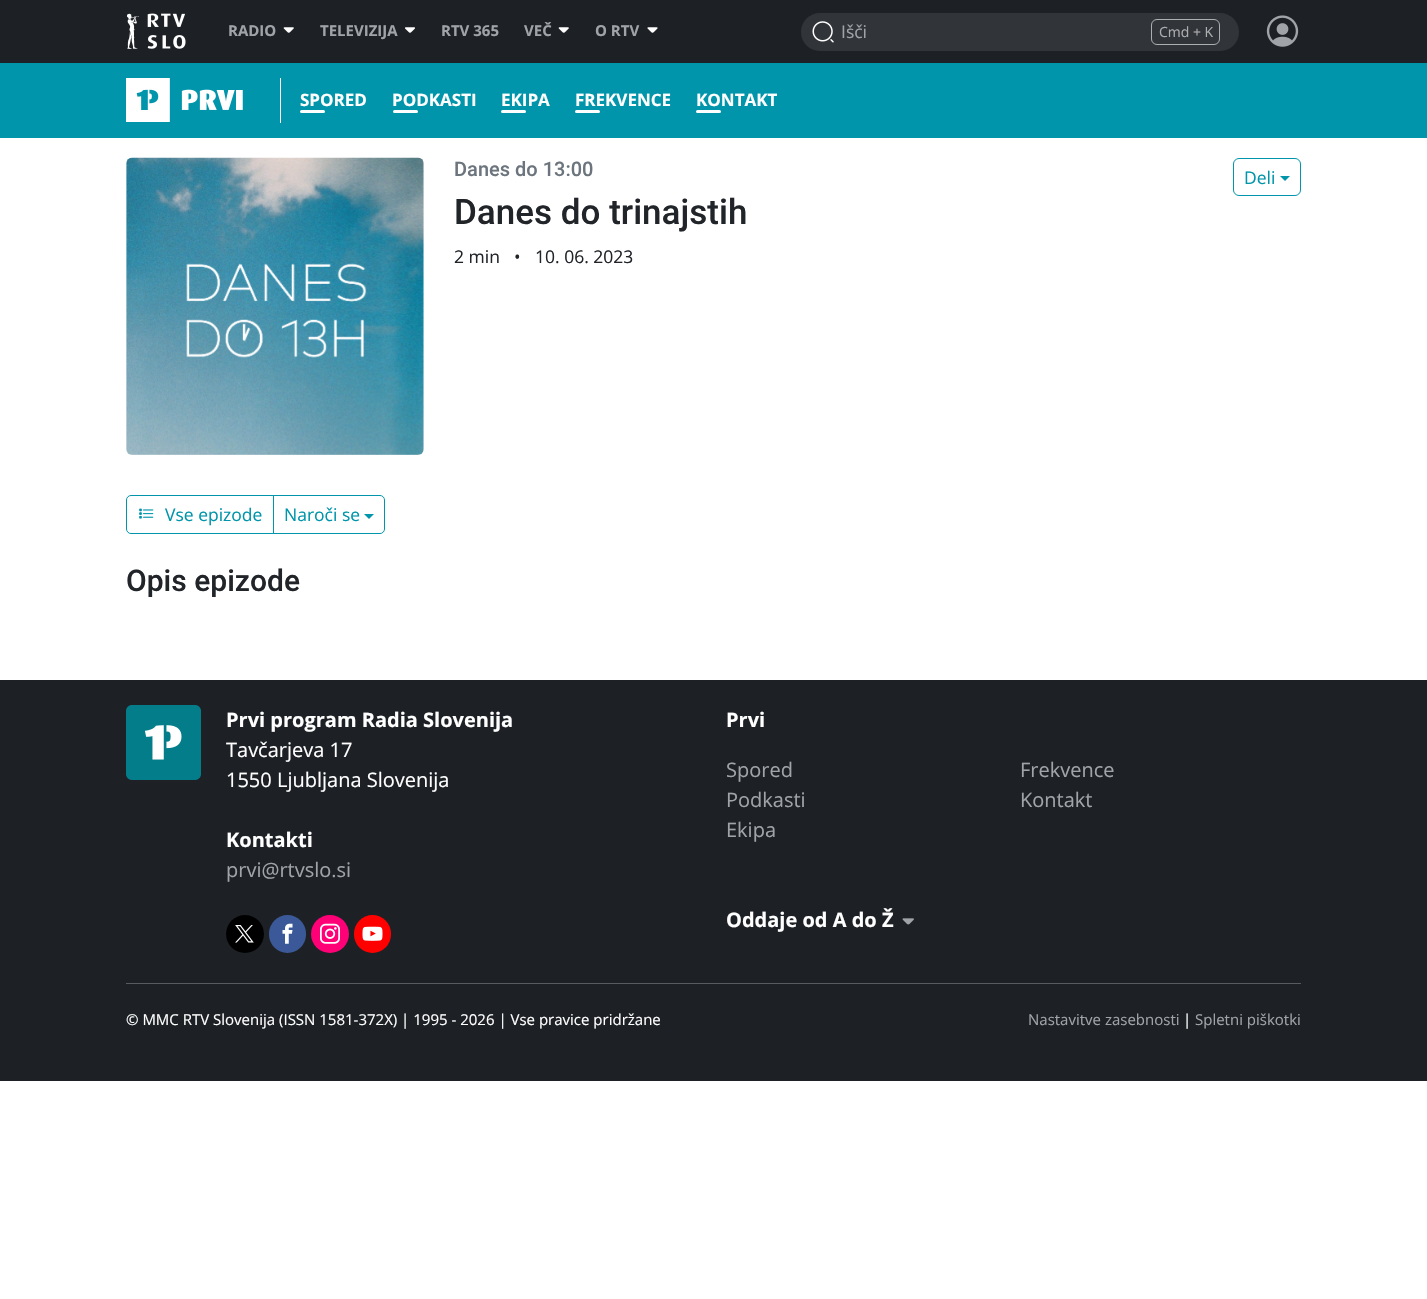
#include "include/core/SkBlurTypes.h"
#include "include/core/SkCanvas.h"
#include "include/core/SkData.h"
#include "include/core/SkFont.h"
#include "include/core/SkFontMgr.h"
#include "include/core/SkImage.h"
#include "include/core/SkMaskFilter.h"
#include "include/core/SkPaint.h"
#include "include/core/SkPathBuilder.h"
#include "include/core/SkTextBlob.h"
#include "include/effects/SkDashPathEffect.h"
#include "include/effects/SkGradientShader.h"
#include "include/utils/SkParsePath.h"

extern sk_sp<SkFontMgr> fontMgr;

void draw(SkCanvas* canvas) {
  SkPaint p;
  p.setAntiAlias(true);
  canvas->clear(SK_ColorWHITE);
  p.setColor(SkColorSetRGB(29, 33, 37));
  canvas->drawRect(SkRect::MakeLTRB(0, 0, 1427, 63), p);
  canvas->drawImageRect(SkImages::DeferredFromEncodedData(SkData::MakeFromFileName("images/1.png")), SkRect::MakeLTRB(127, 13, 186, 49), SkSamplingOptions());
  canvas->drawImageRect(SkImages::DeferredFromEncodedData(SkData::MakeFromFileName("images/2.png")), SkRect::MakeLTRB(283, 27, 294, 33), SkSamplingOptions());
  canvas->drawImageRect(SkImages::DeferredFromEncodedData(SkData::MakeFromFileName("images/3.png")), SkRect::MakeLTRB(405, 27, 415, 33), SkSamplingOptions());
  canvas->drawImageRect(SkImages::DeferredFromEncodedData(SkData::MakeFromFileName("images/2.png")), SkRect::MakeLTRB(558, 27, 569, 33), SkSamplingOptions());
  canvas->drawImageRect(SkImages::DeferredFromEncodedData(SkData::MakeFromFileName("images/4.png")), SkRect::MakeLTRB(647, 27, 658, 33), SkSamplingOptions());
  p.setColor(SkColorSetRGB(49, 53, 58));
  canvas->drawRoundRect(SkRect::MakeLTRB(801, 13, 1239, 51), 19, 19, p);
  canvas->drawImageRect(SkImages::DeferredFromEncodedData(SkData::MakeFromFileName("images/5.png")), SkRect::MakeLTRB(812, 21, 834, 43), SkSamplingOptions());
  p.setStyle(SkPaint::kStroke_Style);
  p.setStrokeWidth(1);
  p.setColor(SkColorSetRGB(173, 174, 176));
  canvas->drawRoundRect(SkRect::MakeLTRB(1151.5f, 19.5f, 1219.5f, 44.5f), 5.5f, 5.5f, p);
  canvas->drawImageRect(SkImages::DeferredFromEncodedData(SkData::MakeFromFileName("images/6.png")), SkRect::MakeLTRB(1266, 15, 1299, 47), SkSamplingOptions());
  p.setStyle(SkPaint::kFill_Style);
  p.setColor(SkColorSetRGB(0, 149, 170));
  canvas->drawRect(SkRect::MakeLTRB(0, 63, 1427, 138), p);
  p.setColor(SK_ColorWHITE);
  canvas->drawRect(SkRect::MakeLTRB(280, 78, 281, 123), p);
  canvas->drawImageRect(SkImages::DeferredFromEncodedData(SkData::MakeFromFileName("images/7.png")), SkRect::MakeLTRB(126, 78, 243, 122), SkSamplingOptions());
  canvas->drawRoundRect(SkRect::MakeLTRB(300, 110, 325, 113), 1.5f, 1.5f, p);
  canvas->drawRoundRect(SkRect::MakeLTRB(393, 110, 418, 113), 1.5f, 1.5f, p);
  canvas->drawRoundRect(SkRect::MakeLTRB(501, 110, 526, 113), 1.5f, 1.5f, p);
  canvas->drawRoundRect(SkRect::MakeLTRB(575, 110, 600, 113), 1.5f, 1.5f, p);
  canvas->drawRoundRect(SkRect::MakeLTRB(696, 110, 721, 113), 1.5f, 1.5f, p);
  p.setColor(SkColorSetRGB(242, 242, 242));
  canvas->drawRoundRect(SkRect::MakeLTRB(126, 158, 424, 455), 6, 6, p);
  canvas->drawImageRect(SkImages::DeferredFromEncodedData(SkData::MakeFromFileName("images/8.png")), SkRect::MakeLTRB(126, 157, 424, 455), SkSamplingOptions());
  p.setStyle(SkPaint::kStroke_Style);
  p.setColor(SkColorSetRGB(0, 149, 170));
  canvas->drawRoundRect(SkRect::MakeLTRB(1233.5f, 158.5f, 1300.5f, 195.5f), 5.5f, 5.5f, p);
  p.setStyle(SkPaint::kFill_Style);
  canvas->drawPath(SkPathBuilder().moveTo(1280, 176).lineTo(1290, 176).lineTo(1285, 181).close().detach(), p);
  p.setStyle(SkPaint::kStroke_Style);
  canvas->drawPath(SkPathBuilder().moveTo(131, 495.5f).lineTo(273.5f, 495.5f).lineTo(273.5f, 533.5f).lineTo(131, 533.5f).cubicTo(128.5f, 533.5f, 126.5f, 531.5f, 126.5f, 529).lineTo(126.5f, 500).cubicTo(126.5f, 497.5f, 128.5f, 495.5f, 131, 495.5f).close().detach(), p);
  canvas->drawImageRect(SkImages::DeferredFromEncodedData(SkData::MakeFromFileName("images/9.png")), SkRect::MakeLTRB(139, 508, 154, 519), SkSamplingOptions());
  canvas->drawPath(SkPathBuilder().moveTo(273.5f, 495.5f).lineTo(380, 495.5f).cubicTo(382.5f, 495.5f, 384.5f, 497.5f, 384.5f, 500).lineTo(384.5f, 529).cubicTo(384.5f, 531.5f, 382.5f, 533.5f, 380, 533.5f).lineTo(273.5f, 533.5f).close().detach(), p);
  p.setStyle(SkPaint::kFill_Style);
  canvas->drawPath(SkPathBuilder().moveTo(364, 514).lineTo(374, 514).lineTo(369, 519).close().detach(), p);
  p.setColor(SkColorSetRGB(29, 33, 37));
  canvas->drawRect(SkRect::MakeLTRB(0, 680, 1427, 1081), p);
  canvas->drawImageRect(SkImages::DeferredFromEncodedData(SkData::MakeFromFileName("images/10.png")), SkRect::MakeLTRB(126, 705, 201, 780), SkSamplingOptions());
  p.setColor(SK_ColorBLACK);
  canvas->drawCircle(245, 934, 19, p);
  canvas->drawImageRect(SkImages::DeferredFromEncodedData(SkData::MakeFromFileName("images/11.png")), SkRect::MakeLTRB(235, 925, 254, 943), SkSamplingOptions());
  p.setColor(SkColorSetRGB(59, 89, 152));
  canvas->drawRoundRect(SkRect::MakeLTRB(269, 915, 306, 953), 18.5f, 18.5f, p);
  canvas->drawImageRect(SkImages::DeferredFromEncodedData(SkData::MakeFromFileName("images/12.png")), SkRect::MakeLTRB(282, 923, 293, 944), SkSamplingOptions());
  p.setColor(SkColorSetRGB(255, 0, 118));
  canvas->drawCircle(330, 934, 19, p);
  canvas->drawImageRect(SkImages::DeferredFromEncodedData(SkData::MakeFromFileName("images/13.png")), SkRect::MakeLTRB(320, 923, 340, 944), SkSamplingOptions());
  p.setColor(SkColorSetRGB(255, 0, 0));
  canvas->drawRoundRect(SkRect::MakeLTRB(354, 915, 391, 953), 18.5f, 18.5f, p);
  canvas->drawImageRect(SkImages::DeferredFromEncodedData(SkData::MakeFromFileName("images/14.png")), SkRect::MakeLTRB(362, 926, 383, 941), SkSamplingOptions());
  canvas->drawImageRect(SkImages::DeferredFromEncodedData(SkData::MakeFromFileName("images/15.png")), SkRect::MakeLTRB(902, 918, 914, 925), SkSamplingOptions());
  p.setColor(SkColorSetRGB(88, 92, 96));
  canvas->drawRect(SkRect::MakeLTRB(126, 983, 1301, 984), p);
  SkFont font1(fontMgr->matchFamilyStyle("Open Sans", SkFontStyle::Bold()), 15);
  font1.setSubpixel(true);
  p.setColor(SkColorSetRGB(160, 164, 169));
  canvas->drawString("RADIO", 228, 36, font1, p);
  canvas->drawString("TELEVIZIJA", 320, 36, font1, p);
  canvas->drawString("RTV 365", 441, 36, font1, p);
  canvas->drawString("VEČ", 524, 36, font1, p);
  canvas->drawString("O RTV", 595, 36, font1, p);
  SkFont font2(fontMgr->matchFamilyStyle("Open Sans", SkFontStyle::Normal()), 17.5f);
  font2.setSubpixel(true);
  canvas->drawString("Išči", 841, 38, font2, p);
  SkFont font3(fontMgr->matchFamilyStyle("Open Sans", SkFontStyle::Normal()), 14);
  font3.setSubpixel(true);
  p.setColor(SkColorSetRGB(173, 174, 176));
  canvas->drawString("Cmd + K", 1159, 37, font3, p);
  SkFont font4(fontMgr->matchFamilyStyle("Open Sans", SkFontStyle::Bold()), 17);
  font4.setSubpixel(true);
  p.setColor(SK_ColorWHITE);
  canvas->drawString("SPORED", 300, 106, font4, p);
  canvas->drawString("PODKASTI", 392, 106, font4, p);
  canvas->drawString("EKIPA", 501, 106, font4, p);
  canvas->drawString("FREKVENCE", 575, 106, font4, p);
  canvas->drawString("KONTAKT", 696, 106, font4, p);
  SkFont font5(fontMgr->matchFamilyStyle("Roboto", SkFontStyle(500, SkFontStyle::kNormal_Width, SkFontStyle::kUpright_Slant)), 20);
  font5.setSubpixel(true);
  p.setColor(SkColorSetRGB(108, 117, 125));
  canvas->drawString("Danes do 13:00", 454, 176, font5, p);
  p.setColor(SkColorSetRGB(0, 149, 170));
  canvas->drawString("Deli", 1244, 184, font2, p);
  SkFont font6(fontMgr->matchFamilyStyle("Roboto", SkFontStyle(500, SkFontStyle::kNormal_Width, SkFontStyle::kUpright_Slant)), 35);
  font6.setSubpixel(true);
  p.setColor(SkColorSetRGB(33, 37, 41));
  canvas->drawString("Danes do trinajstih", 454, 224, font6, p);
  canvas->drawString("2 min", 454, 263, font2, p);
  canvas->drawString("•", 514, 263, font2, p);
  canvas->drawString("10. 06. 2023", 535, 263, font2, p);
  p.setColor(SkColorSetRGB(0, 149, 170));
  canvas->drawString("Vse epizode", 165, 521, font2, p);
  canvas->drawString("Naroči se", 284, 521, font2, p);
  SkFont font7(fontMgr->matchFamilyStyle("Roboto", SkFontStyle(500, SkFontStyle::kNormal_Width, SkFontStyle::kUpright_Slant)), 30);
  font7.setSubpixel(true);
  p.setColor(SkColorSetRGB(33, 37, 41));
  canvas->drawString("Opis epizode", 126, 591, font7, p);
  SkFont font8(fontMgr->matchFamilyStyle("Open Sans", SkFontStyle::Bold()), 20);
  font8.setSubpixel(true);
  p.setColor(SK_ColorWHITE);
  canvas->drawString("Prvi program Radia Slovenija", 226, 727, font8, p);
  SkFont font9(fontMgr->matchFamilyStyle("Open Sans", SkFontStyle::Normal()), 20);
  font9.setSubpixel(true);
  canvas->drawString("Tavčarjeva 17", 226, 757, font9, p);
  canvas->drawString("1550 Ljubljana Slovenija", 226, 787, font9, p);
  canvas->drawString("Kontakti", 226, 847, font8, p);
  p.setColor(SkColorSetRGB(160, 164, 169));
  canvas->drawString("prvi@rtvslo.si", 226, 877, font9, p);
  p.setColor(SK_ColorWHITE);
  canvas->drawString("Prvi", 726, 727, font8, p);
  p.setColor(SkColorSetRGB(160, 164, 169));
  canvas->drawString("Spored", 726, 777, font9, p);
  canvas->drawString("Frekvence", 1020, 777, font9, p);
  canvas->drawString("Podkasti", 726, 807, font9, p);
  canvas->drawString("Kontakt", 1020, 807, font9, p);
  canvas->drawString("Ekipa", 726, 837, font9, p);
  p.setColor(SK_ColorWHITE);
  canvas->drawString("Oddaje od A do Ž", 726, 927, font8, p);
  SkFont font10(fontMgr->matchFamilyStyle("Open Sans", SkFontStyle::Normal()), 15);
  font10.setSubpixel(true);
  canvas->drawString("© MMC RTV Slovenija (ISSN 1581-372X) | 1995 - 2026 | Vse pravice pridržane", 126, 1025, font10, p);
  p.setColor(SkColorSetRGB(160, 164, 169));
  canvas->drawString("Nastavitve zasebnosti", 1028, 1025, font10, p);
  p.setColor(SK_ColorWHITE);
  canvas->drawString("|", 1183, 1025, font10, p);
  p.setColor(SkColorSetRGB(160, 164, 169));
  canvas->drawString("Spletni piškotki", 1195, 1025, font10, p);
}
